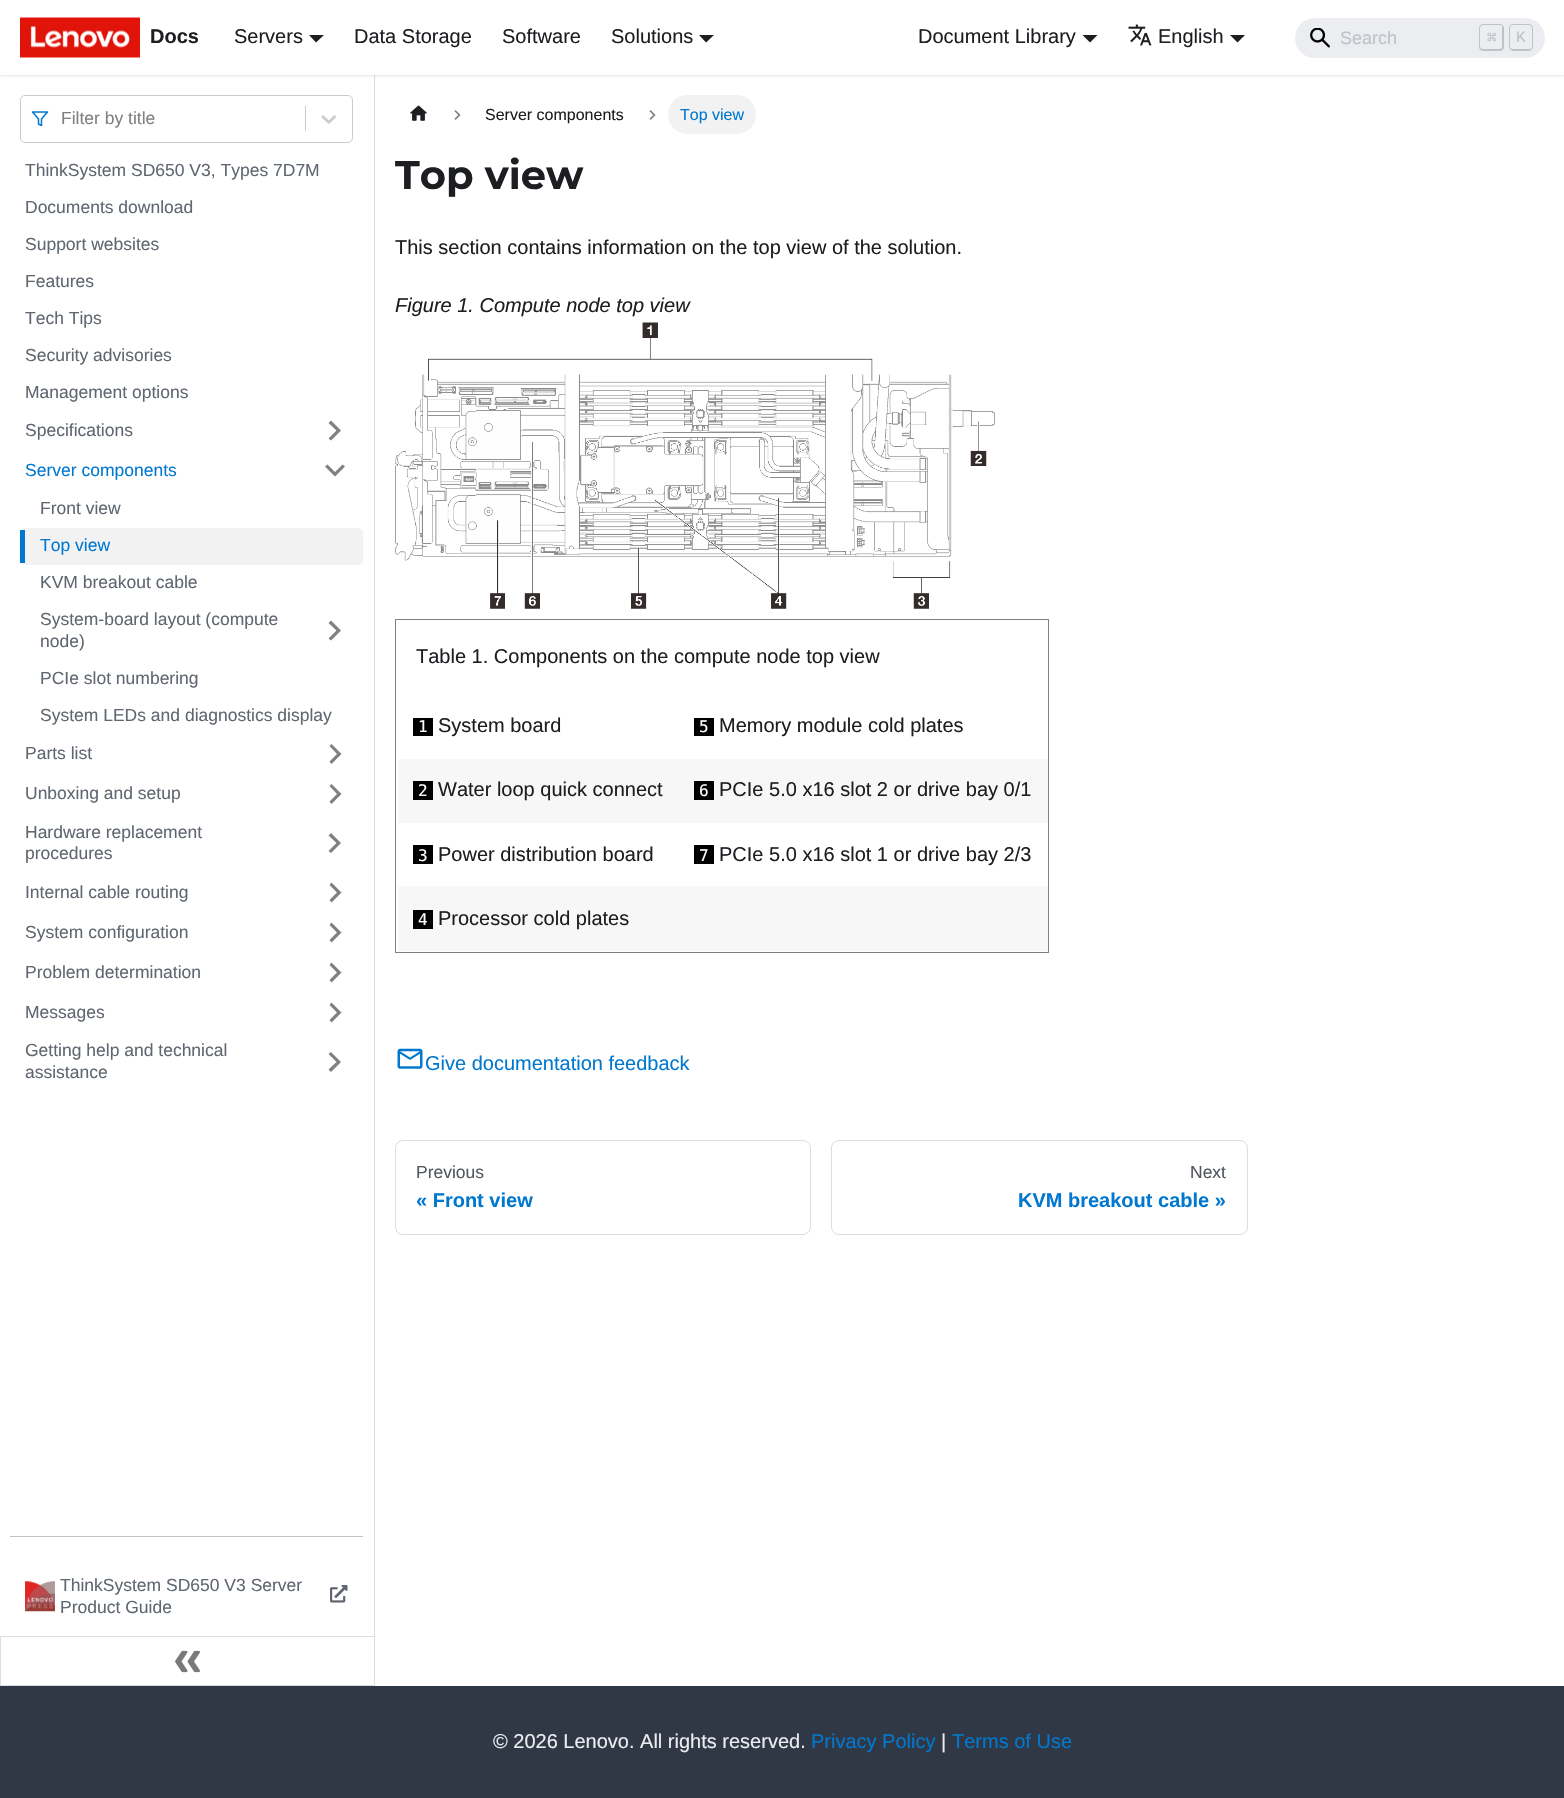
#include "include/core/SkBlurTypes.h"
#include "include/core/SkCanvas.h"
#include "include/core/SkData.h"
#include "include/core/SkFont.h"
#include "include/core/SkFontMgr.h"
#include "include/core/SkImage.h"
#include "include/core/SkMaskFilter.h"
#include "include/core/SkPaint.h"
#include "include/core/SkPathBuilder.h"
#include "include/core/SkTextBlob.h"
#include "include/effects/SkDashPathEffect.h"
#include "include/effects/SkGradientShader.h"
#include "include/utils/SkParsePath.h"

extern sk_sp<SkFontMgr> fontMgr;

void draw(SkCanvas* canvas) {
  SkPaint p;
  p.setAntiAlias(true);
  canvas->clear(SK_ColorWHITE);
  p.setColor(SkColorSetRGB(218, 221, 225));
  canvas->drawRect(SkRect::MakeLTRB(374, 75, 375, 1636), p);
  p.setColor(SkColorSetARGB(26, 0, 0, 0));
  p.setMaskFilter(SkMaskFilter::MakeBlur(kNormal_SkBlurStyle, 1));
  canvas->drawRect(SkRect::MakeLTRB(0, 1, 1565, 76), p);
  p.setMaskFilter(nullptr);
  p.setColor(SK_ColorWHITE);
  canvas->drawRect(SkRect::MakeLTRB(0, 0, 1564, 75), p);
  canvas->drawImageRect(SkImages::DeferredFromEncodedData(SkData::MakeFromFileName("images/1.png")), SkRect::MakeLTRB(20, 17, 140, 58), SkSamplingOptions());
  p.setColor(SkColorSetRGB(28, 30, 33));
  canvas->drawPath(SkPathBuilder().moveTo(309, 35).lineTo(324, 35).lineTo(316, 42.5f).close().detach(), p);
  canvas->drawPath(SkPathBuilder().moveTo(699, 35).lineTo(714, 35).lineTo(706, 42.5f).close().detach(), p);
  canvas->drawPath(SkPathBuilder().moveTo(1082.5f, 35).lineTo(1097.5f, 35).lineTo(1090, 42.5f).close().detach(), p);
  canvas->drawImageRect(SkImages::DeferredFromEncodedData(SkData::MakeFromFileName("images/2.png")), SkRect::MakeLTRB(1128, 24, 1152, 46), SkSamplingOptions());
  canvas->drawPath(SkPathBuilder().moveTo(1230, 35).lineTo(1245, 35).lineTo(1237.5f, 42.5f).close().detach(), p);
  p.setColor(SkColorSetRGB(235, 237, 240));
  canvas->drawRoundRect(SkRect::MakeLTRB(1295, 18, 1545, 58), 20, 20, p);
  canvas->drawImageRect(SkImages::DeferredFromEncodedData(SkData::MakeFromFileName("images/3.png")), SkRect::MakeLTRB(1310, 28, 1330, 48), SkSamplingOptions());
  p.setColor(SkColorSetRGB(190, 195, 201));
  canvas->drawPath(SkPathBuilder().moveTo(1480, 46).lineTo(1480, 47.5f).cubicTo(1480, 49, 1481, 50, 1482.5f, 50).lineTo(1500.5f, 50).cubicTo(1502, 50, 1503, 49, 1503, 47.5f).lineTo(1503, 27.5f).cubicTo(1503, 26.5f, 1502.5f, 26, 1502, 25.5f).lineTo(1502, 39.5f).cubicTo(1502, 49.5f, 1503.5f, 49, 1494.5f, 49).lineTo(1482.5f, 49).cubicTo(1480.5f, 48.5f, 1480, 47.5f, 1480, 46).close().detach(), p);
  p.setStyle(SkPaint::kStroke_Style);
  p.setStrokeWidth(1);
  canvas->drawRoundRect(SkRect::MakeLTRB(1479.5f, 24.5f, 1503.5f, 50.5f), 3.5f, 3.5f, p);
  p.setStyle(SkPaint::kFill_Style);
  canvas->drawPath(SkPathBuilder().moveTo(1510, 46).cubicTo(1510, 50, 1511.5f, 50, 1515, 50).lineTo(1526, 50).cubicTo(1529.5f, 50, 1531, 50, 1531, 46).cubicTo(1531, 48, 1530, 49, 1528, 49).lineTo(1513, 49).cubicTo(1511, 49, 1510, 48, 1510, 46).close().detach(), p);
  p.setStyle(SkPaint::kStroke_Style);
  canvas->drawRoundRect(SkRect::MakeLTRB(1509.5f, 24.5f, 1532.5f, 50.5f), 3.5f, 3.5f, p);
  p.setColor(SkColorSetRGB(204, 204, 204));
  canvas->drawRoundRect(SkRect::MakeLTRB(20.5f, 95.5f, 352.5f, 142.5f), 4.5f, 4.5f, p);
  p.setStrokeWidth(1.5f);
  p.setStrokeCap(SkPaint::kRound_Cap);
  p.setStrokeJoin(SkPaint::kRound_Join);
  p.setColor(SkColorSetRGB(0, 120, 208));
  canvas->drawPath(SkPathBuilder().moveTo(47.5f, 112).lineTo(32.5f, 112).lineTo(38.5f, 119).lineTo(38.5f, 124).lineTo(41.5f, 125.5f).lineTo(41.5f, 119).close().detach(), p);
  p.setStyle(SkPaint::kFill_Style);
  p.setColor(SkColorSetRGB(204, 204, 204));
  canvas->drawRect(SkRect::MakeLTRB(305, 106, 306, 131), p);
  canvas->drawImageRect(SkImages::DeferredFromEncodedData(SkData::MakeFromFileName("images/4.png")), SkRect::MakeLTRB(321, 115, 336, 124), SkSamplingOptions());
  p.setColor(SkColorSetRGB(128, 128, 128));
  canvas->drawPath(SkPathBuilder().moveTo(328.5f, 423).lineTo(336.5f, 430.5f).lineTo(328.5f, 438.5f).lineTo(331, 440.5f).lineTo(341, 430.5f).lineTo(331, 420.5f).close().detach(), p);
  canvas->drawPath(SkPathBuilder().moveTo(342.5f, 464.5f).lineTo(335, 472).lineTo(327.5f, 464.5f).lineTo(325, 466.5f).lineTo(335, 476.5f).lineTo(345, 466.5f).close().detach(), p);
  p.setColor(SkColorSetRGB(242, 242, 242));
  canvas->drawRoundRect(SkRect::MakeLTRB(20, 528, 363, 565), 5, 5, p);
  p.setColor(SkColorSetRGB(0, 120, 208));
  canvas->drawRect(SkRect::MakeLTRB(20, 530, 25, 563), p);
  p.setColor(SkColorSetRGB(128, 128, 128));
  canvas->drawPath(SkPathBuilder().moveTo(328.5f, 623).lineTo(336.5f, 630.5f).lineTo(328.5f, 638.5f).lineTo(331, 640.5f).lineTo(341, 630.5f).lineTo(331, 620.5f).close().detach(), p);
  canvas->drawPath(SkPathBuilder().moveTo(329.5f, 746).lineTo(337, 754).lineTo(329.5f, 761.5f).lineTo(331.5f, 764).lineTo(341.5f, 754).lineTo(331.5f, 744).close().detach(), p);
  canvas->drawPath(SkPathBuilder().moveTo(329.5f, 786).lineTo(337, 794).lineTo(329.5f, 801.5f).lineTo(331.5f, 804).lineTo(341.5f, 794).lineTo(331.5f, 784).close().detach(), p);
  canvas->drawPath(SkPathBuilder().moveTo(328.5f, 835.5f).lineTo(336.5f, 843).lineTo(328.5f, 851).lineTo(331, 853).lineTo(341, 843).lineTo(331, 833).close().detach(), p);
  canvas->drawPath(SkPathBuilder().moveTo(329.5f, 885).lineTo(337, 892.5f).lineTo(329.5f, 900).lineTo(331.5f, 902.5f).lineTo(341.5f, 892.5f).lineTo(331.5f, 882.5f).close().detach(), p);
  canvas->drawPath(SkPathBuilder().moveTo(329.5f, 925).lineTo(337, 932.5f).lineTo(329.5f, 940).lineTo(331.5f, 942.5f).lineTo(341.5f, 932.5f).lineTo(331.5f, 922.5f).close().detach(), p);
  canvas->drawPath(SkPathBuilder().moveTo(329.5f, 965).lineTo(337, 972.5f).lineTo(329.5f, 980).lineTo(331.5f, 982.5f).lineTo(341.5f, 972.5f).lineTo(331.5f, 962.5f).close().detach(), p);
  canvas->drawPath(SkPathBuilder().moveTo(329.5f, 1005).lineTo(337, 1012.5f).lineTo(329.5f, 1020).lineTo(331.5f, 1022.5f).lineTo(341.5f, 1012.5f).lineTo(331.5f, 1002.5f).close().detach(), p);
  canvas->drawPath(SkPathBuilder().moveTo(328.5f, 1054).lineTo(336.5f, 1062).lineTo(328.5f, 1069.5f).lineTo(331, 1072).lineTo(341, 1062).lineTo(331, 1052).close().detach(), p);
  p.setColor(SkColorSetRGB(190, 195, 201));
  canvas->drawRect(SkRect::MakeLTRB(10, 1536, 363, 1537), p);
  canvas->drawImageRect(SkImages::DeferredFromEncodedData(SkData::MakeFromFileName("images/5.png")), SkRect::MakeLTRB(25, 1581, 55, 1612), SkSamplingOptions());
  canvas->drawImageRect(SkImages::DeferredFromEncodedData(SkData::MakeFromFileName("images/6.png")), SkRect::MakeLTRB(330, 1585, 348, 1603), SkSamplingOptions());
  p.setStyle(SkPaint::kStroke_Style);
  p.setStrokeWidth(1);
  p.setStrokeCap(SkPaint::kButt_Cap);
  p.setStrokeJoin(SkPaint::kMiter_Join);
  p.setColor(SkColorSetRGB(218, 221, 225));
  canvas->drawRect(SkRect::MakeLTRB(0.5f, 1636.5f, 374.5f, 1685.5f), p);
  canvas->drawImageRect(SkImages::DeferredFromEncodedData(SkData::MakeFromFileName("images/7.png")), SkRect::MakeLTRB(175, 1650, 200, 1673), SkSamplingOptions());
  canvas->drawImageRect(SkImages::DeferredFromEncodedData(SkData::MakeFromFileName("images/8.png")), SkRect::MakeLTRB(410, 105, 427, 121), SkSamplingOptions());
  canvas->drawImageRect(SkImages::DeferredFromEncodedData(SkData::MakeFromFileName("images/9.png")), SkRect::MakeLTRB(454, 110, 461, 120), SkSamplingOptions());
  canvas->drawImageRect(SkImages::DeferredFromEncodedData(SkData::MakeFromFileName("images/9.png")), SkRect::MakeLTRB(649, 110, 656, 120), SkSamplingOptions());
  p.setStyle(SkPaint::kFill_Style);
  p.setColor(SkColorSetRGB(242, 242, 242));
  canvas->drawRoundRect(SkRect::MakeLTRB(668, 95, 756, 134), 19.5f, 19.5f, p);
  canvas->drawImageRect(SkImages::DeferredFromEncodedData(SkData::MakeFromFileName("images/10.png")), SkRect::MakeLTRB(395, 322, 995, 609), SkSamplingOptions());
  p.setStyle(SkPaint::kStroke_Style);
  p.setColor(SkColorSetRGB(128, 128, 128));
  canvas->drawRect(SkRect::MakeLTRB(395.5f, 619.5f, 1048.5f, 952.5f), p);
  p.setStyle(SkPaint::kFill_Style);
  p.setColor(SK_ColorBLACK);
  canvas->drawRect(SkRect::MakeLTRB(413, 718, 433, 736), p);
  canvas->drawRect(SkRect::MakeLTRB(694, 718, 714, 736), p);
  p.setColor(SkColorSetRGB(247, 247, 247));
  canvas->drawRect(SkRect::MakeLTRB(398, 759, 1048, 823), p);
  p.setColor(SK_ColorBLACK);
  canvas->drawRect(SkRect::MakeLTRB(413, 781, 433, 800), p);
  canvas->drawRect(SkRect::MakeLTRB(694, 781, 714, 800), p);
  canvas->drawRect(SkRect::MakeLTRB(413, 845, 433, 864), p);
  canvas->drawRect(SkRect::MakeLTRB(694, 845, 714, 864), p);
  p.setColor(SkColorSetRGB(247, 247, 247));
  canvas->drawRect(SkRect::MakeLTRB(398, 886, 1048, 951), p);
  p.setColor(SK_ColorBLACK);
  canvas->drawRect(SkRect::MakeLTRB(413, 910, 433, 929), p);
  canvas->drawImageRect(SkImages::DeferredFromEncodedData(SkData::MakeFromFileName("images/11.png")), SkRect::MakeLTRB(397, 1048, 423, 1069), SkSamplingOptions());
  p.setStyle(SkPaint::kStroke_Style);
  p.setColor(SkColorSetRGB(218, 221, 225));
  canvas->drawRoundRect(SkRect::MakeLTRB(395.5f, 1140.5f, 810.5f, 1234.5f), 7.5f, 7.5f, p);
  canvas->drawRoundRect(SkRect::MakeLTRB(831.5f, 1140.5f, 1247.5f, 1234.5f), 7.5f, 7.5f, p);
  p.setStyle(SkPaint::kFill_Style);
  p.setColor(SkColorSetRGB(48, 56, 70));
  canvas->drawRect(SkRect::MakeLTRB(0, 1686, 1564, 1798), p);
  SkFont font1(fontMgr->matchFamilyStyle("Liberation Sans", SkFontStyle::Bold()), 20);
  font1.setSubpixel(true);
  p.setColor(SkColorSetRGB(28, 30, 33));
  canvas->drawString("Docs", 150, 43, font1, p);
  SkFont font2(fontMgr->matchFamilyStyle("Liberation Sans", SkFontStyle::Normal()), 20);
  font2.setSubpixel(true);
  canvas->drawString("Servers", 234, 43, font2, p);
  canvas->drawString("Data Storage", 354, 43, font2, p);
  canvas->drawString("Software", 502, 43, font2, p);
  canvas->drawString("Solutions", 611, 43, font2, p);
  canvas->drawString("Document Library", 918, 43, font2, p);
  canvas->drawString("English", 1158, 43, font2, p);
  SkFont font3(fontMgr->matchFamilyStyle("Liberation Sans", SkFontStyle::Normal()), 18);
  font3.setSubpixel(true);
  p.setColor(SkColorSetRGB(190, 195, 201));
  canvas->drawString("Search", 1340, 44, font3, p);
  SkFont font4(fontMgr->matchFamilyStyle("DejaVu Sans Mono", SkFontStyle::Normal()), 16);
  font4.setSubpixel(true);
  canvas->drawString("⌘", 1487, 43, font4, p);
  SkFont font5(fontMgr->matchFamilyStyle("Liberation Mono", SkFontStyle::Normal()), 16);
  font5.setSubpixel(true);
  canvas->drawString("K", 1516, 42, font5, p);
  SkFont font6(fontMgr->matchFamilyStyle("Liberation Sans", SkFontStyle::Normal()), 17.5f);
  font6.setSubpixel(true);
  p.setColor(SkColorSetRGB(128, 128, 128));
  canvas->drawString("Filter by title", 61, 124, font6, p);
  p.setColor(SkColorSetRGB(96, 103, 112));
  canvas->drawString("ThinkSystem SD650 V3, Types 7D7M", 25, 176, font6, p);
  canvas->drawString("Documents download", 25, 213, font6, p);
  canvas->drawString("Support websites", 25, 250, font6, p);
  canvas->drawString("Features", 25, 287, font6, p);
  canvas->drawString("Tech Tips", 25, 324, font6, p);
  canvas->drawString("Security advisories", 25, 361, font6, p);
  canvas->drawString("Management options", 25, 398, font6, p);
  canvas->drawString("Specifications", 25, 436, font6, p);
  p.setColor(SkColorSetRGB(0, 120, 208));
  canvas->drawString("Server components", 25, 476, font6, p);
  p.setColor(SkColorSetRGB(96, 103, 112));
  canvas->drawString("Front view", 40, 514, font6, p);
  p.setColor(SkColorSetRGB(0, 120, 208));
  canvas->drawString("Top view", 40, 551, font6, p);
  p.setColor(SkColorSetRGB(96, 103, 112));
  canvas->drawString("KVM breakout cable", 40, 588, font6, p);
  canvas->drawString("System-board layout (compute", 40, 625, font6, p);
  canvas->drawString("node)", 40, 647, font6, p);
  canvas->drawString("PCIe slot numbering", 40, 684, font6, p);
  canvas->drawString("System LEDs and diagnostics display", 40, 721, font6, p);
  canvas->drawString("Parts list", 25, 759, font6, p);
  canvas->drawString("Unboxing and setup", 25, 799, font6, p);
  canvas->drawString("Hardware replacement", 25, 838, font6, p);
  canvas->drawString("procedures", 25, 859, font6, p);
  canvas->drawString("Internal cable routing", 25, 898, font6, p);
  canvas->drawString("System configuration", 25, 938, font6, p);
  canvas->drawString("Problem determination", 25, 978, font6, p);
  canvas->drawString("Messages", 25, 1018, font6, p);
  canvas->drawString("Getting help and technical", 25, 1056, font6, p);
  canvas->drawString("assistance", 25, 1078, font6, p);
  canvas->drawString("ThinkSystem SD650 V3 Server", 60, 1591, font6, p);
  canvas->drawString("Product Guide", 60, 1613, font6, p);
  SkFont font7(fontMgr->matchFamilyStyle("Liberation Sans", SkFontStyle::Normal()), 16);
  font7.setSubpixel(true);
  p.setColor(SkColorSetRGB(28, 30, 33));
  canvas->drawString("Server components", 485, 120, font7, p);
  p.setColor(SkColorSetRGB(0, 120, 208));
  canvas->drawString("Top view", 680, 120, font7, p);
  SkFont font8(fontMgr->matchFamilyStyle("Montserrat", SkFontStyle::Bold()), 40);
  font8.setSubpixel(true);
  p.setColor(SkColorSetRGB(28, 30, 33));
  canvas->drawString("Top view", 395, 189, font8, p);
  canvas->drawString("This section contains information on the top view of the solution.", 395, 254, font2, p);
  SkFont font9(fontMgr->matchFamilyStyle("Liberation Sans", SkFontStyle::Italic()), 20);
  font9.setSubpixel(true);
  canvas->drawString("Figure 1. Compute node top view", 395, 312, font9, p);
  canvas->drawString("Table 1. Components on the compute node top view", 416, 663, font2, p);
  p.setColor(SK_ColorWHITE);
  canvas->drawString("1", 418, 732, font4, p);
  p.setColor(SkColorSetRGB(28, 30, 33));
  canvas->drawString("System board", 438, 732, font2, p);
  p.setColor(SK_ColorWHITE);
  canvas->drawString("5", 699, 732, font4, p);
  p.setColor(SkColorSetRGB(28, 30, 33));
  canvas->drawString("Memory module cold plates", 719, 732, font2, p);
  p.setColor(SK_ColorWHITE);
  canvas->drawString("2", 418, 796, font4, p);
  p.setColor(SkColorSetRGB(28, 30, 33));
  canvas->drawString("Water loop quick connect", 438, 796, font2, p);
  p.setColor(SK_ColorWHITE);
  canvas->drawString("6", 699, 796, font4, p);
  p.setColor(SkColorSetRGB(28, 30, 33));
  canvas->drawString("PCIe 5.0 x16 slot 2 or drive bay 0/1", 719, 796, font2, p);
  p.setColor(SK_ColorWHITE);
  canvas->drawString("3", 418, 861, font4, p);
  p.setColor(SkColorSetRGB(28, 30, 33));
  canvas->drawString("Power distribution board", 438, 861, font2, p);
  p.setColor(SK_ColorWHITE);
  canvas->drawString("7", 699, 861, font4, p);
  p.setColor(SkColorSetRGB(28, 30, 33));
  canvas->drawString("PCIe 5.0 x16 slot 1 or drive bay 2/3", 719, 861, font2, p);
  p.setColor(SK_ColorWHITE);
  canvas->drawString("4", 418, 925, font4, p);
  p.setColor(SkColorSetRGB(28, 30, 33));
  canvas->drawString("Processor cold plates", 438, 925, font2, p);
  p.setColor(SkColorSetRGB(0, 120, 208));
  canvas->drawString("Give documentation feedback", 425, 1070, font2, p);
  p.setColor(SkColorSetRGB(82, 88, 96));
  canvas->drawString("Previous", 416, 1178, font6, p);
  p.setColor(SkColorSetRGB(0, 120, 208));
  canvas->drawString("« Front view", 416, 1207, font1, p);
  p.setColor(SkColorSetRGB(82, 88, 96));
  canvas->drawString("Next", 1190, 1178, font6, p);
  p.setColor(SkColorSetRGB(0, 120, 208));
  canvas->drawString("KVM breakout cable »", 1018, 1207, font1, p);
  p.setColor(SkColorSetRGB(235, 237, 240));
  canvas->drawString("© 2026 Lenovo. All rights reserved.", 493, 1748, font2, p);
  p.setColor(SkColorSetRGB(0, 120, 208));
  canvas->drawString("Privacy Policy", 811, 1748, font2, p);
  p.setColor(SkColorSetRGB(235, 237, 240));
  canvas->drawString("|", 941, 1748, font2, p);
  p.setColor(SkColorSetRGB(0, 120, 208));
  canvas->drawString("Terms of Use", 952, 1748, font2, p);
}
